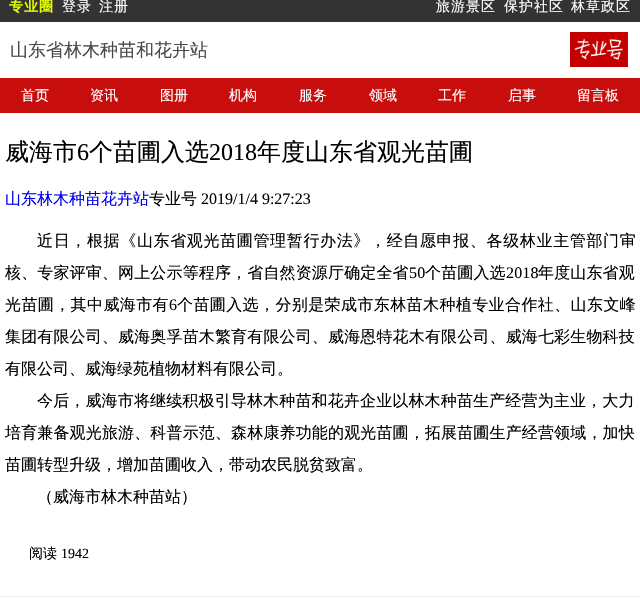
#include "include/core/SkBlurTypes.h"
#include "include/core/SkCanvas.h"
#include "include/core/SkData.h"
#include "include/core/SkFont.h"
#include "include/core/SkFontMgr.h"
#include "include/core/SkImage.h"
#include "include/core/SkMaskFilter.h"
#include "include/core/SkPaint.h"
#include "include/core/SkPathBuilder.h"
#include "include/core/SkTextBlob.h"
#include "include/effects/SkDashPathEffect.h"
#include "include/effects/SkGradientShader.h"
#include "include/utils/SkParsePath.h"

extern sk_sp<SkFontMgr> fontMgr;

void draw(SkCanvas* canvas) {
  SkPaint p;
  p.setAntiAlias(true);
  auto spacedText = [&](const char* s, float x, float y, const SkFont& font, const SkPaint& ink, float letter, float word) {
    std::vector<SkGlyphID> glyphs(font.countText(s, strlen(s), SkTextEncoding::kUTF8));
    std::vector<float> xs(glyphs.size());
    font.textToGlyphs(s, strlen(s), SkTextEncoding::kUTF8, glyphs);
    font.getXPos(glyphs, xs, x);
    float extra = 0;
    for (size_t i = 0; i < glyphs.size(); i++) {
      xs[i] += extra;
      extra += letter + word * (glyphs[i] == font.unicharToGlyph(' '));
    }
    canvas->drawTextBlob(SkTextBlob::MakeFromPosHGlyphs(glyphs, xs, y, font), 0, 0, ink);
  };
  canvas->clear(SK_ColorWHITE);
  p.setColor(SkColorSetRGB(51, 51, 51));
  canvas->drawRect(SkRect::MakeLTRB(0, 0, 640, 22), p);
  canvas->drawImageRect(SkImages::DeferredFromEncodedData(SkData::MakeFromFileName("images/1.png")), SkRect::MakeLTRB(570, 32, 628, 67), SkSamplingOptions());
  p.setColor(SkColorSetRGB(200, 13, 13));
  canvas->drawRect(SkRect::MakeLTRB(0, 78, 640, 113), p);
  p.setColor(SkColorSetRGB(238, 238, 238));
  canvas->drawRect(SkRect::MakeLTRB(0, 596, 640, 597), p);
  SkFont font1(fontMgr->matchFamilyStyle("WenQuanYi Zen Hei", SkFontStyle::Bold()), 14);
  font1.setSubpixel(true);
  p.setColor(SkColorSetRGB(228, 255, 0));
  spacedText("专业圈", 9, 11, font1, p, 1, 0);
  SkFont font2(fontMgr->matchFamilyStyle("WenQuanYi Zen Hei", SkFontStyle(500, SkFontStyle::kNormal_Width, SkFontStyle::kUpright_Slant)), 14);
  font2.setSubpixel(true);
  p.setColor(SK_ColorWHITE);
  spacedText("登录", 62, 11, font2, p, 1, 0);
  spacedText("注册", 99, 11, font2, p, 1, 0);
  spacedText("旅游景区", 436, 11, font2, p, 1, 0);
  spacedText("保护社区", 504, 11, font2, p, 1, 0);
  spacedText("林草政区", 571, 11, font2, p, 1, 0);
  SkFont font3(fontMgr->matchFamilyStyle("WenQuanYi Zen Hei", SkFontStyle(500, SkFontStyle::kNormal_Width, SkFontStyle::kUpright_Slant)), 18);
  font3.setSubpixel(true);
  p.setColor(SkColorSetRGB(73, 72, 72));
  canvas->drawString("山东省林木种苗和花卉站", 10, 56, font3, p);
  p.setColor(SK_ColorWHITE);
  canvas->drawString("首页", 21, 100, font2, p);
  canvas->drawString("资讯", 90, 100, font2, p);
  canvas->drawString("图册", 160, 100, font2, p);
  canvas->drawString("机构", 229, 100, font2, p);
  canvas->drawString("服务", 299, 100, font2, p);
  canvas->drawString("领域", 369, 100, font2, p);
  canvas->drawString("工作", 438, 100, font2, p);
  canvas->drawString("启事", 508, 100, font2, p);
  canvas->drawString("留言板", 577, 100, font2, p);
  SkFont font4(fontMgr->matchFamilyStyle("WenQuanYi Zen Hei", SkFontStyle(500, SkFontStyle::kNormal_Width, SkFontStyle::kUpright_Slant)), 24);
  font4.setSubpixel(true);
  p.setColor(SK_ColorBLACK);
  canvas->drawString("威海市", 5, 160, font4, p);
  SkFont font5(fontMgr->matchFamilyStyle("Liberation Serif", SkFontStyle::Normal()), 24);
  font5.setSubpixel(true);
  canvas->drawString("6", 77, 160, font5, p);
  canvas->drawString("个苗圃入选", 89, 160, font4, p);
  canvas->drawString("2018", 209, 160, font5, p);
  canvas->drawString("年度山东省观光苗圃", 257, 160, font4, p);
  SkFont font6(fontMgr->matchFamilyStyle("WenQuanYi Zen Hei", SkFontStyle(500, SkFontStyle::kNormal_Width, SkFontStyle::kUpright_Slant)), 16);
  font6.setSubpixel(true);
  p.setColor(SkColorSetRGB(0, 0, 238));
  canvas->drawString("山东林木种苗花卉站", 5, 204, font6, p);
  p.setColor(SK_ColorBLACK);
  canvas->drawString("专业号", 149, 204, font6, p);
  SkFont font7(fontMgr->matchFamilyStyle("Liberation Serif", SkFontStyle::Normal()), 16);
  font7.setSubpixel(true);
  canvas->drawString("2019/1/4 9:27:23", 201, 204, font7, p);
  spacedText("近日，根据《山东省观光苗圃管理暂行办法》，经自愿申报、各级林业主管部门审", 37, 246, font6, p, 0.65f, 0);
  spacedText("核、专家评审、网上公示等程序，省自然资源厅确定全省", 5, 278, font6, p, 0.15f, 0);
  spacedText("50", 409, 278, font7, p, 0.15f, 0);
  spacedText("个苗圃入选", 425, 278, font6, p, 0.15f, 0);
  spacedText("2018", 506, 278, font7, p, 0.15f, 0);
  spacedText("年度山东省观", 538, 278, font6, p, 0.15f, 0);
  spacedText("光苗圃，其中威海市有", 5, 310, font6, p, 0.4f, 0);
  spacedText("6", 169, 310, font7, p, 0.4f, 0);
  spacedText("个苗圃入选，分别是荣成市东林苗木种植专业合作社、山东文峰", 177, 310, font6, p, 0.4f, 0);
  spacedText("集团有限公司、威海奥孚苗木繁育有限公司、威海恩特花木有限公司、威海七彩生物科技", 5, 342, font6, p, 0.15f, 0);
  canvas->drawString("有限公司、威海绿苑植物材料有限公司。", 5, 374, font6, p);
  spacedText("今后，威海市将继续积极引导林木种苗和花卉企业以林木种苗生产经营为主业，大力", 37, 406, font6, p, 0.15f, 0);
  spacedText("培育兼备观光旅游、科普示范、森林康养功能的观光苗圃，拓展苗圃生产经营领域，加快", 5, 438, font6, p, 0.15f, 0);
  canvas->drawString("苗圃转型升级，增加苗圃收入，带动农民脱贫致富。", 5, 470, font6, p);
  canvas->drawString("（威海市林木种苗站）", 37, 502, font6, p);
  canvas->drawString("阅读", 29, 558, font2, p);
  SkFont font8(fontMgr->matchFamilyStyle("Liberation Serif", SkFontStyle::Normal()), 14);
  font8.setSubpixel(true);
  canvas->drawString("1942", 61, 558, font8, p);
}
